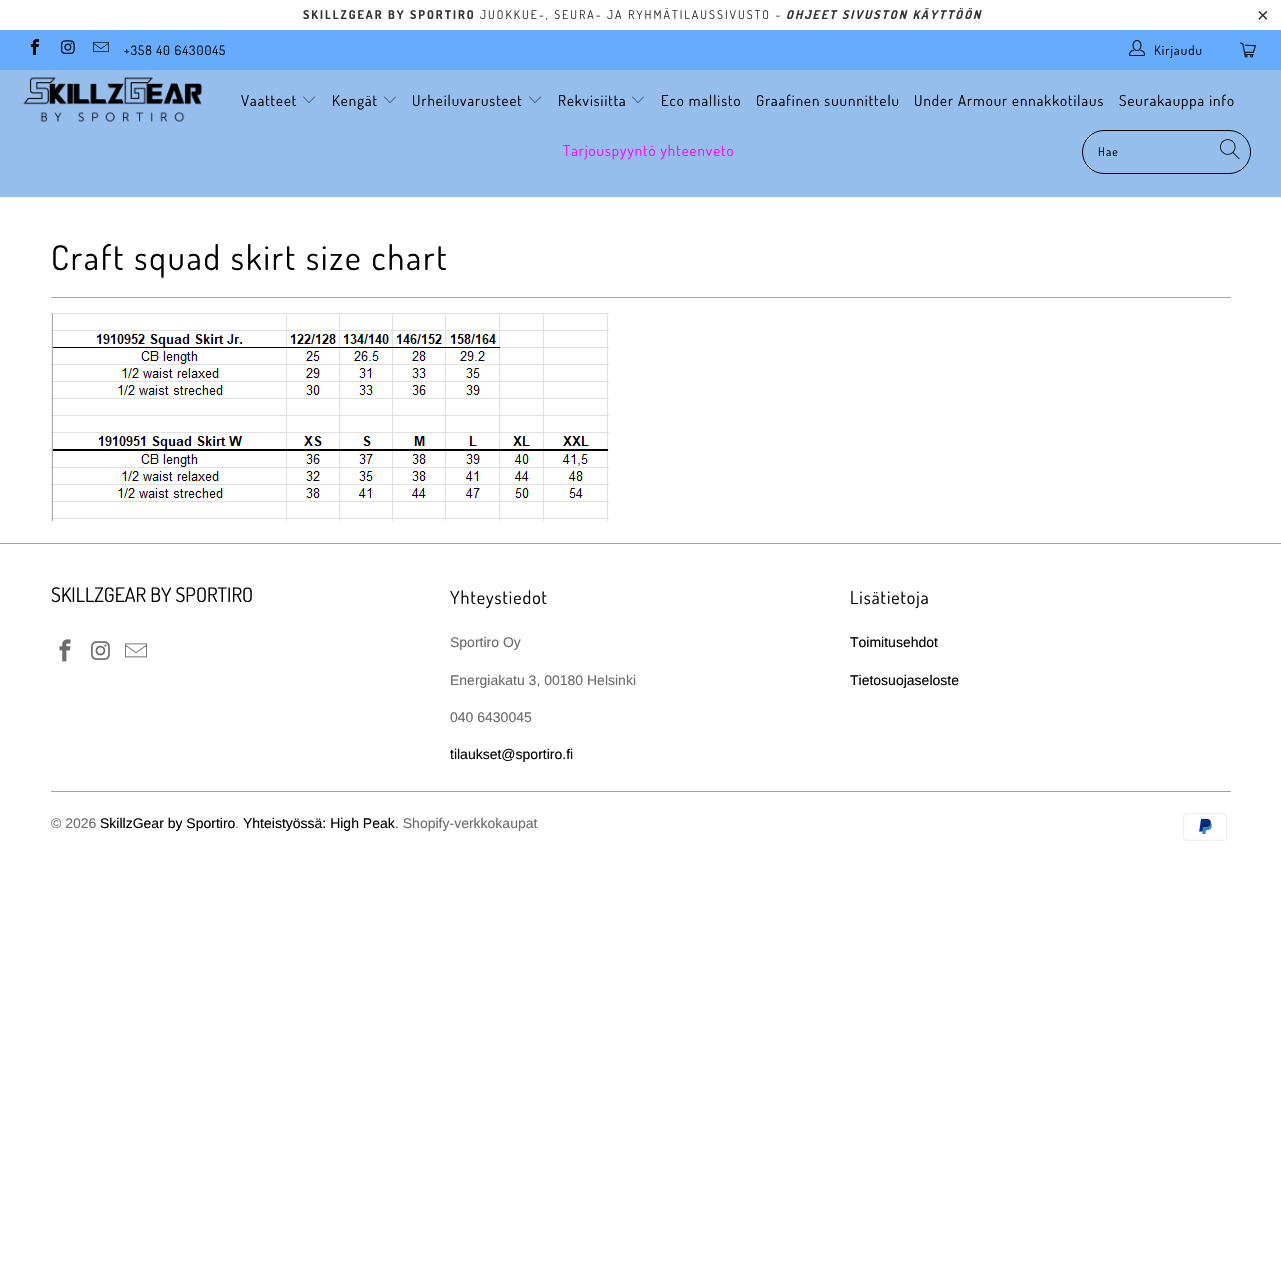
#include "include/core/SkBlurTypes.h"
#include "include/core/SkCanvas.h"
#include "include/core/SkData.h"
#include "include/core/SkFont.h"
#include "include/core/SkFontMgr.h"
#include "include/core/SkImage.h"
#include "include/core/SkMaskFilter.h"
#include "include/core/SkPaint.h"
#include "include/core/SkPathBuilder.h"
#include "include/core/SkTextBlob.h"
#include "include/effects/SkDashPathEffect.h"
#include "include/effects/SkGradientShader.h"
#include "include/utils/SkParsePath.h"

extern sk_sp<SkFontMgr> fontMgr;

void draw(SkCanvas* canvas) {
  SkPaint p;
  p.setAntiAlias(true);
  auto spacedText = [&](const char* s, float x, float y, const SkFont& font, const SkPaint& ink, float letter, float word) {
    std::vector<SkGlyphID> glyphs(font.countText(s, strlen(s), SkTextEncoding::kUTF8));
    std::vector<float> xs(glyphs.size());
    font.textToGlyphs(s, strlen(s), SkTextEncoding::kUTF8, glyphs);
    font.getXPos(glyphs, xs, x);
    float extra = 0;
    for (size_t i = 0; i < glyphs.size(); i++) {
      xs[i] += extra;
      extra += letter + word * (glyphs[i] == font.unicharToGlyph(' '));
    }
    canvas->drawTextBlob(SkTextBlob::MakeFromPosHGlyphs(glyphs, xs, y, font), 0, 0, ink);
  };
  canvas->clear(SK_ColorWHITE);
  p.setColor(SkColorSetRGB(101, 172, 253));
  canvas->drawRect(SkRect::MakeLTRB(0, 30, 1281, 70), p);
  canvas->drawImageRect(SkImages::DeferredFromEncodedData(SkData::MakeFromFileName("images/1.png")), SkRect::MakeLTRB(31, 39, 39, 55), SkSamplingOptions());
  canvas->drawImageRect(SkImages::DeferredFromEncodedData(SkData::MakeFromFileName("images/2.png")), SkRect::MakeLTRB(61, 40, 75, 54), SkSamplingOptions());
  canvas->drawImageRect(SkImages::DeferredFromEncodedData(SkData::MakeFromFileName("images/3.png")), SkRect::MakeLTRB(93, 41, 109, 53), SkSamplingOptions());
  canvas->drawImageRect(SkImages::DeferredFromEncodedData(SkData::MakeFromFileName("images/4.png")), SkRect::MakeLTRB(1129, 40, 1145, 56), SkSamplingOptions());
  canvas->drawImageRect(SkImages::DeferredFromEncodedData(SkData::MakeFromFileName("images/5.png")), SkRect::MakeLTRB(1240, 42, 1256, 58), SkSamplingOptions());
  p.setColor(SkColorSetRGB(150, 190, 236));
  canvas->drawRect(SkRect::MakeLTRB(0, 70, 1281, 197), p);
  canvas->drawImageRect(SkImages::DeferredFromEncodedData(SkData::MakeFromFileName("images/6.png")), SkRect::MakeLTRB(23, 77, 202, 122), SkSamplingOptions());
  canvas->drawImageRect(SkImages::DeferredFromEncodedData(SkData::MakeFromFileName("images/7.png")), SkRect::MakeLTRB(303, 96, 315, 103), SkSamplingOptions());
  canvas->drawImageRect(SkImages::DeferredFromEncodedData(SkData::MakeFromFileName("images/7.png")), SkRect::MakeLTRB(384, 96, 396, 103), SkSamplingOptions());
  canvas->drawImageRect(SkImages::DeferredFromEncodedData(SkData::MakeFromFileName("images/7.png")), SkRect::MakeLTRB(529, 96, 541, 103), SkSamplingOptions());
  canvas->drawImageRect(SkImages::DeferredFromEncodedData(SkData::MakeFromFileName("images/7.png")), SkRect::MakeLTRB(632, 96, 644, 103), SkSamplingOptions());
  p.setStyle(SkPaint::kStroke_Style);
  p.setStrokeWidth(1);
  p.setColor(SK_ColorBLACK);
  canvas->drawRoundRect(SkRect::MakeLTRB(1082.5f, 130.5f, 1250.5f, 173.5f), 21.5f, 21.5f, p);
  canvas->drawImageRect(SkImages::DeferredFromEncodedData(SkData::MakeFromFileName("images/8.png")), SkRect::MakeLTRB(1220, 139, 1240, 160), SkSamplingOptions());
  p.setStyle(SkPaint::kFill_Style);
  p.setColor(SkColorSetRGB(170, 170, 170));
  canvas->drawRect(SkRect::MakeLTRB(51, 297, 1231, 298), p);
  canvas->drawImageRect(SkImages::DeferredFromEncodedData(SkData::MakeFromFileName("images/9.png")), SkRect::MakeLTRB(51, 313, 609, 521), SkSamplingOptions());
  p.setColor(SkColorSetRGB(101, 172, 253));
  canvas->drawRect(SkRect::MakeLTRB(0, 543, 1281, 544), p);
  canvas->drawImageRect(SkImages::DeferredFromEncodedData(SkData::MakeFromFileName("images/10.png")), SkRect::MakeLTRB(59, 639, 71, 662), SkSamplingOptions());
  canvas->drawImageRect(SkImages::DeferredFromEncodedData(SkData::MakeFromFileName("images/11.png")), SkRect::MakeLTRB(91, 641, 110, 660), SkSamplingOptions());
  canvas->drawImageRect(SkImages::DeferredFromEncodedData(SkData::MakeFromFileName("images/12.png")), SkRect::MakeLTRB(125, 643, 147, 658), SkSamplingOptions());
  canvas->drawRect(SkRect::MakeLTRB(51, 791, 1231, 792), p);
  canvas->drawImageRect(SkImages::DeferredFromEncodedData(SkData::MakeFromFileName("images/13.png")), SkRect::MakeLTRB(1183, 813, 1227, 841), SkSamplingOptions());
  SkFont font1(fontMgr->matchFamilyStyle("Dosis", SkFontStyle::Bold()), 12);
  font1.setSubpixel(true);
  p.setColor(SkColorSetRGB(51, 51, 51));
  spacedText("SKILLZGEAR BY SPORTIRO", 303, 19, font1, p, 2, 0);
  SkFont font2(fontMgr->matchFamilyStyle("Dosis", SkFontStyle::Normal()), 12);
  font2.setSubpixel(true);
  spacedText("JUOKKUE-, SEURA- JA RYHMÄTILAUSSIVUSTO -", 480, 19, font2, p, 2, 0);
  SkFont font3(fontMgr->matchFamilyStyle("Dosis", SkFontStyle::BoldItalic()), 12);
  font3.setSubpixel(true);
  spacedText("OHJEET SIVUSTON KÄYTTÖÖN", 786, 19, font3, p, 2, 0);
  SkFont font4(fontMgr->matchFamilyStyle("Liberation Sans", SkFontStyle::Normal()), 20);
  font4.setSubpixel(true);
  spacedText("×", 1257, 22, font4, p, 2, 0);
  SkFont font5(fontMgr->matchFamilyStyle("Dosis", SkFontStyle::Normal()), 13);
  font5.setSubpixel(true);
  p.setColor(SK_ColorBLACK);
  spacedText("+358 40 6430045", 124, 55, font5, p, 1, 0);
  spacedText("Kirjaudu", 1154, 55, font5, p, 1, 0);
  SkFont font6(fontMgr->matchFamilyStyle("Dosis", SkFontStyle::Normal()), 15);
  font6.setSubpixel(true);
  spacedText("Vaatteet", 241, 106, font6, p, 1, 0);
  spacedText("Kengät", 332, 106, font6, p, 1, 0);
  spacedText("Urheiluvarusteet", 412, 106, font6, p, 1, 0);
  spacedText("Rekvisiitta", 558, 106, font6, p, 1, 0);
  spacedText("Eco mallisto", 661, 106, font6, p, 1, 0);
  spacedText("Graafinen suunnittelu", 756, 106, font6, p, 1, 0);
  spacedText("Under Armour ennakkotilaus", 914, 106, font6, p, 1, 0);
  spacedText("Seurakauppa info", 1119, 106, font6, p, 1, 0);
  p.setColor(SkColorSetRGB(255, 0, 255));
  spacedText("Tarjouspyyntö yhteenveto", 563, 156, font6, p, 1, 0);
  p.setColor(SK_ColorBLACK);
  spacedText("Hae", 1098, 156, font2, p, 1, 0);
  SkFont font7(fontMgr->matchFamilyStyle("Dosis", SkFontStyle::Normal()), 34);
  font7.setSubpixel(true);
  spacedText("Craft squad skirt size chart", 51, 270, font7, p, 2, 0);
  SkFont font8(fontMgr->matchFamilyStyle("Dosis", SkFontStyle::Normal()), 20);
  font8.setSubpixel(true);
  canvas->drawString("SKILLZGEAR BY SPORTIRO", 51, 602, font8, p);
  SkFont font9(fontMgr->matchFamilyStyle("Dosis", SkFontStyle::Normal()), 18);
  font9.setSubpixel(true);
  spacedText("Yhteystiedot", 450, 604, font9, p, 1, 0);
  SkFont font10(fontMgr->matchFamilyStyle("Liberation Sans", SkFontStyle::Normal()), 14);
  font10.setSubpixel(true);
  p.setColor(SkColorSetRGB(107, 107, 107));
  canvas->drawString("Sportiro Oy", 450, 647, font10, p);
  canvas->drawString("Energiakatu 3, 00180 Helsinki", 450, 685, font10, p);
  canvas->drawString("040 6430045", 450, 722, font10, p);
  p.setColor(SK_ColorBLACK);
  canvas->drawString("tilaukset@sportiro.fi", 450, 759, font10, p);
  spacedText("Lisätietoja", 850, 604, font9, p, 1, 0);
  canvas->drawString("Toimitusehdot", 850, 647, font10, p);
  canvas->drawString("Tietosuojaseloste", 850, 685, font10, p);
  p.setColor(SkColorSetRGB(107, 107, 107));
  canvas->drawString("© 2026", 51, 828, font10, p);
  p.setColor(SK_ColorBLACK);
  canvas->drawString("SkillzGear by Sportiro", 100, 828, font10, p);
  p.setColor(SkColorSetRGB(107, 107, 107));
  canvas->drawString(".", 235, 828, font10, p);
  p.setColor(SK_ColorBLACK);
  canvas->drawString("Yhteistyössä: High Peak", 243, 828, font10, p);
  p.setColor(SkColorSetRGB(107, 107, 107));
  canvas->drawString(". Shopify-verkkokaupat", 395, 828, font10, p);
}
